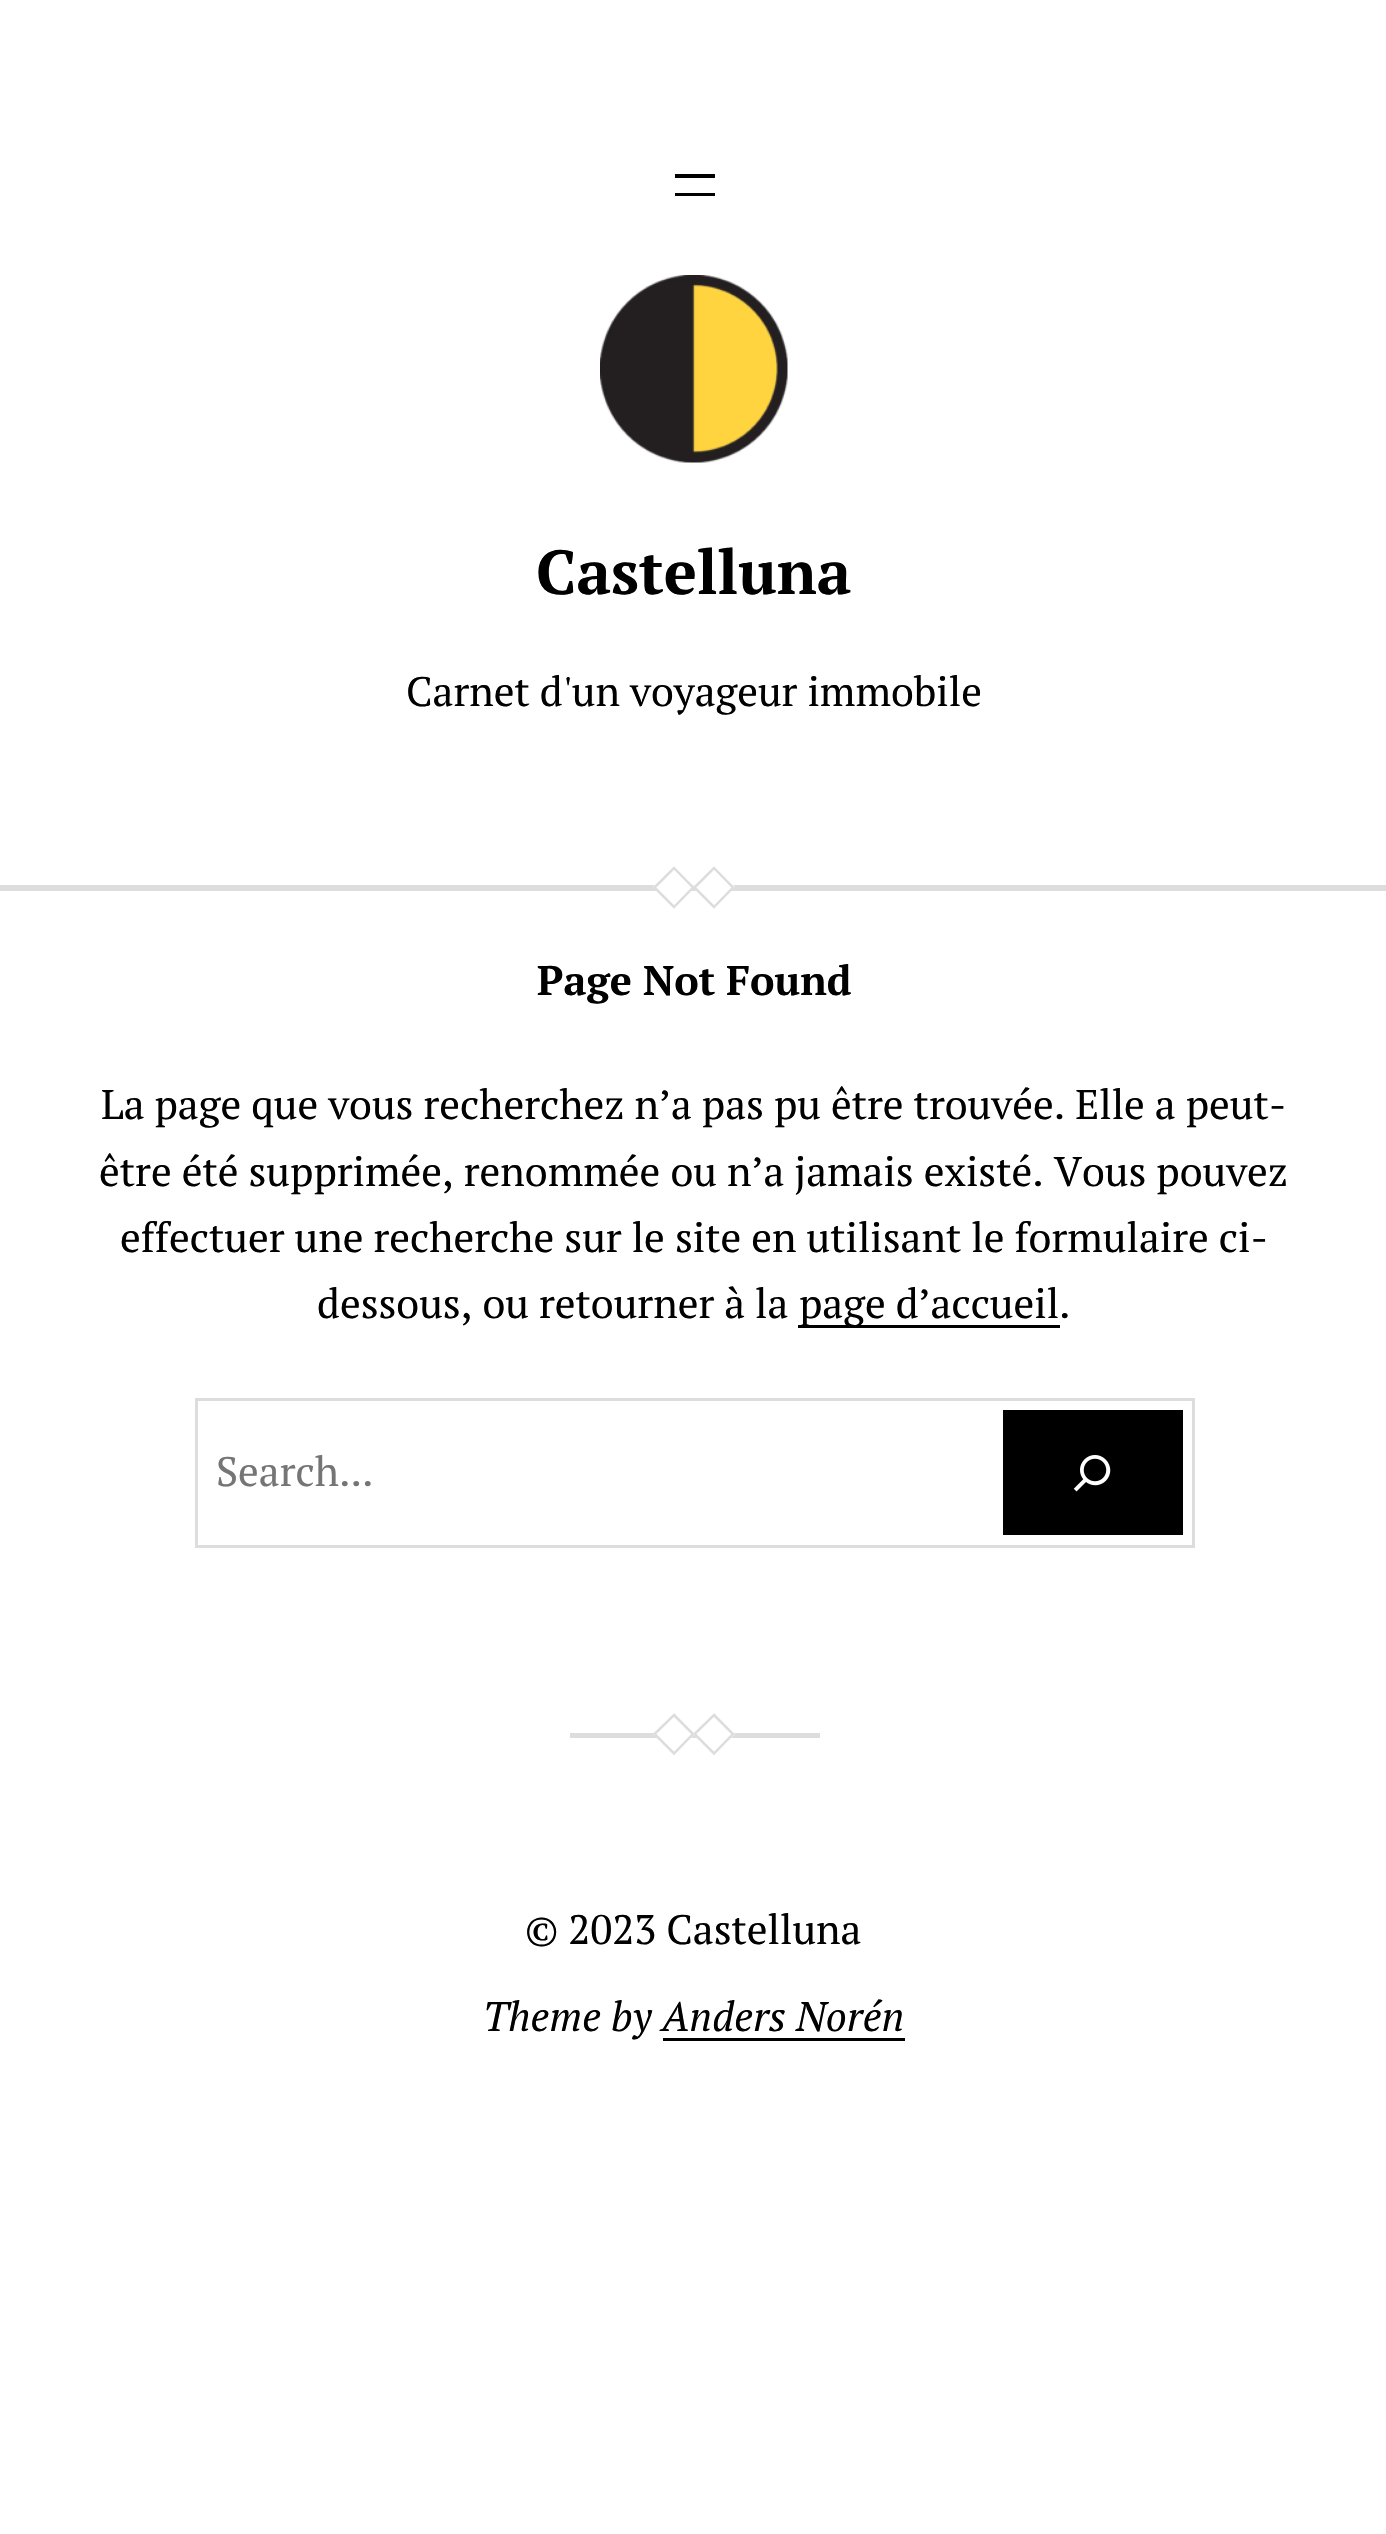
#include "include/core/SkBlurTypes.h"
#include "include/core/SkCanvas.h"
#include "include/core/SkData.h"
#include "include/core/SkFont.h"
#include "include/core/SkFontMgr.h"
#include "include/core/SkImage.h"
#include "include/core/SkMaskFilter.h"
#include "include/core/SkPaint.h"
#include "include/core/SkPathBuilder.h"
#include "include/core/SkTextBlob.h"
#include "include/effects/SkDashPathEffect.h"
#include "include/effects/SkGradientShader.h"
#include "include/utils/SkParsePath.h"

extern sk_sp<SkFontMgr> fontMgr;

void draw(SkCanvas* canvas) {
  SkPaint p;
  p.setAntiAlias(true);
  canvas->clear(SK_ColorWHITE);
  p.setColor(SK_ColorBLACK);
  canvas->drawRect(SkRect::MakeLTRB(675, 174, 715, 178), p);
  canvas->drawRect(SkRect::MakeLTRB(675, 193, 715, 196), p);
  canvas->drawImageRect(SkImages::DeferredFromEncodedData(SkData::MakeFromFileName("images/1.png")), SkRect::MakeLTRB(600, 275, 788, 463), SkSamplingOptions());
  p.setColor(SkColorSetRGB(221, 221, 221));
  canvas->drawRect(SkRect::MakeLTRB(0, 885, 1386, 891), p);
  p.setColor(SK_ColorWHITE);
  canvas->drawPath(SkPathBuilder().moveTo(674, 866).lineTo(695, 887).lineTo(674, 909).lineTo(653, 887).close().detach(), p);
  p.setStyle(SkPaint::kStroke_Style);
  p.setStrokeWidth(2.5f);
  p.setColor(SkColorSetRGB(221, 221, 221));
  canvas->drawPath(SkPathBuilder().moveTo(674, 868).lineTo(693, 887.5f).lineTo(674, 907).lineTo(654.5f, 887.5f).close().detach(), p);
  p.setStyle(SkPaint::kFill_Style);
  p.setColor(SK_ColorWHITE);
  canvas->drawPath(SkPathBuilder().moveTo(714, 866).lineTo(735, 887).lineTo(714, 909).lineTo(693, 887).close().detach(), p);
  p.setStyle(SkPaint::kStroke_Style);
  p.setColor(SkColorSetRGB(221, 221, 221));
  canvas->drawPath(SkPathBuilder().moveTo(714, 868).lineTo(733, 887.5f).lineTo(714, 907).lineTo(694.5f, 887.5f).close().detach(), p);
  p.setStyle(SkPaint::kFill_Style);
  p.setColor(SK_ColorBLACK);
  canvas->drawRect(SkRect::MakeLTRB(798, 1325, 1060, 1328), p);
  p.setStyle(SkPaint::kStroke_Style);
  p.setStrokeWidth(3);
  p.setColor(SkColorSetRGB(221, 221, 221));
  canvas->drawRect(SkRect::MakeLTRB(196.5f, 1399.5f, 1193.5f, 1546.5f), p);
  p.setStyle(SkPaint::kFill_Style);
  p.setColor(SK_ColorBLACK);
  canvas->drawRect(SkRect::MakeLTRB(1003, 1410, 1183, 1535), p);
  canvas->drawImageRect(SkImages::DeferredFromEncodedData(SkData::MakeFromFileName("images/2.png")), SkRect::MakeLTRB(1073, 1455, 1111, 1492), SkSamplingOptions());
  p.setColor(SkColorSetRGB(221, 221, 221));
  canvas->drawRect(SkRect::MakeLTRB(570, 1733, 820, 1738), p);
  p.setColor(SK_ColorWHITE);
  canvas->drawPath(SkPathBuilder().moveTo(674, 1713).lineTo(695, 1734).lineTo(674, 1755).lineTo(653, 1734).close().detach(), p);
  p.setStyle(SkPaint::kStroke_Style);
  p.setStrokeWidth(2.5f);
  p.setColor(SkColorSetRGB(221, 221, 221));
  canvas->drawPath(SkPathBuilder().moveTo(674, 1715).lineTo(693, 1734).lineTo(674, 1753.5f).lineTo(654.5f, 1734).close().detach(), p);
  p.setStyle(SkPaint::kFill_Style);
  p.setColor(SK_ColorWHITE);
  canvas->drawPath(SkPathBuilder().moveTo(714, 1713).lineTo(735, 1734).lineTo(714, 1755).lineTo(693, 1734).close().detach(), p);
  p.setStyle(SkPaint::kStroke_Style);
  p.setColor(SkColorSetRGB(221, 221, 221));
  canvas->drawPath(SkPathBuilder().moveTo(714, 1715).lineTo(733, 1734).lineTo(714, 1753.5f).lineTo(694.5f, 1734).close().detach(), p);
  p.setStyle(SkPaint::kFill_Style);
  p.setColor(SK_ColorBLACK);
  canvas->drawRect(SkRect::MakeLTRB(663, 2038, 905, 2041), p);
  SkFont font1(fontMgr->matchFamilyStyle("PT Serif", SkFontStyle::Bold()), 62);
  font1.setSubpixel(true);
  canvas->drawString("Castelluna", 536, 594, font1, p);
  SkFont font2(fontMgr->matchFamilyStyle("PT Serif", SkFontStyle::Normal()), 41.25f);
  font2.setSubpixel(true);
  canvas->drawString("Carnet d'un voyageur immobile", 406, 706, font2, p);
  SkFont font3(fontMgr->matchFamilyStyle("PT Serif", SkFontStyle::Bold()), 41.25f);
  font3.setSubpixel(true);
  canvas->drawString("Page Not Found", 537, 995, font3, p);
  canvas->drawString("La page que vous recherchez n’a pas pu être trouvée. Elle a peut-", 101, 1119, font2, p);
  canvas->drawString("être été supprimée, renommée ou n’a jamais existé. Vous pouvez", 99, 1186, font2, p);
  canvas->drawString("effectuer une recherche sur le site en utilisant le formulaire ci-", 120, 1252, font2, p);
  canvas->drawString("dessous, ou retourner à la", 317, 1318, font2, p);
  canvas->drawString("page d’accueil.", 799, 1318, font2, p);
  p.setColor(SkColorSetRGB(117, 117, 117));
  canvas->drawString("Search...", 216, 1486, font2, p);
  p.setColor(SK_ColorBLACK);
  canvas->drawString("© 2023 Castelluna", 525, 1944, font2, p);
  SkFont font4(fontMgr->matchFamilyStyle("PT Serif", SkFontStyle::Italic()), 41.25f);
  font4.setSubpixel(true);
  canvas->drawString("Theme by Anders Norén", 483, 2031, font4, p);
}
